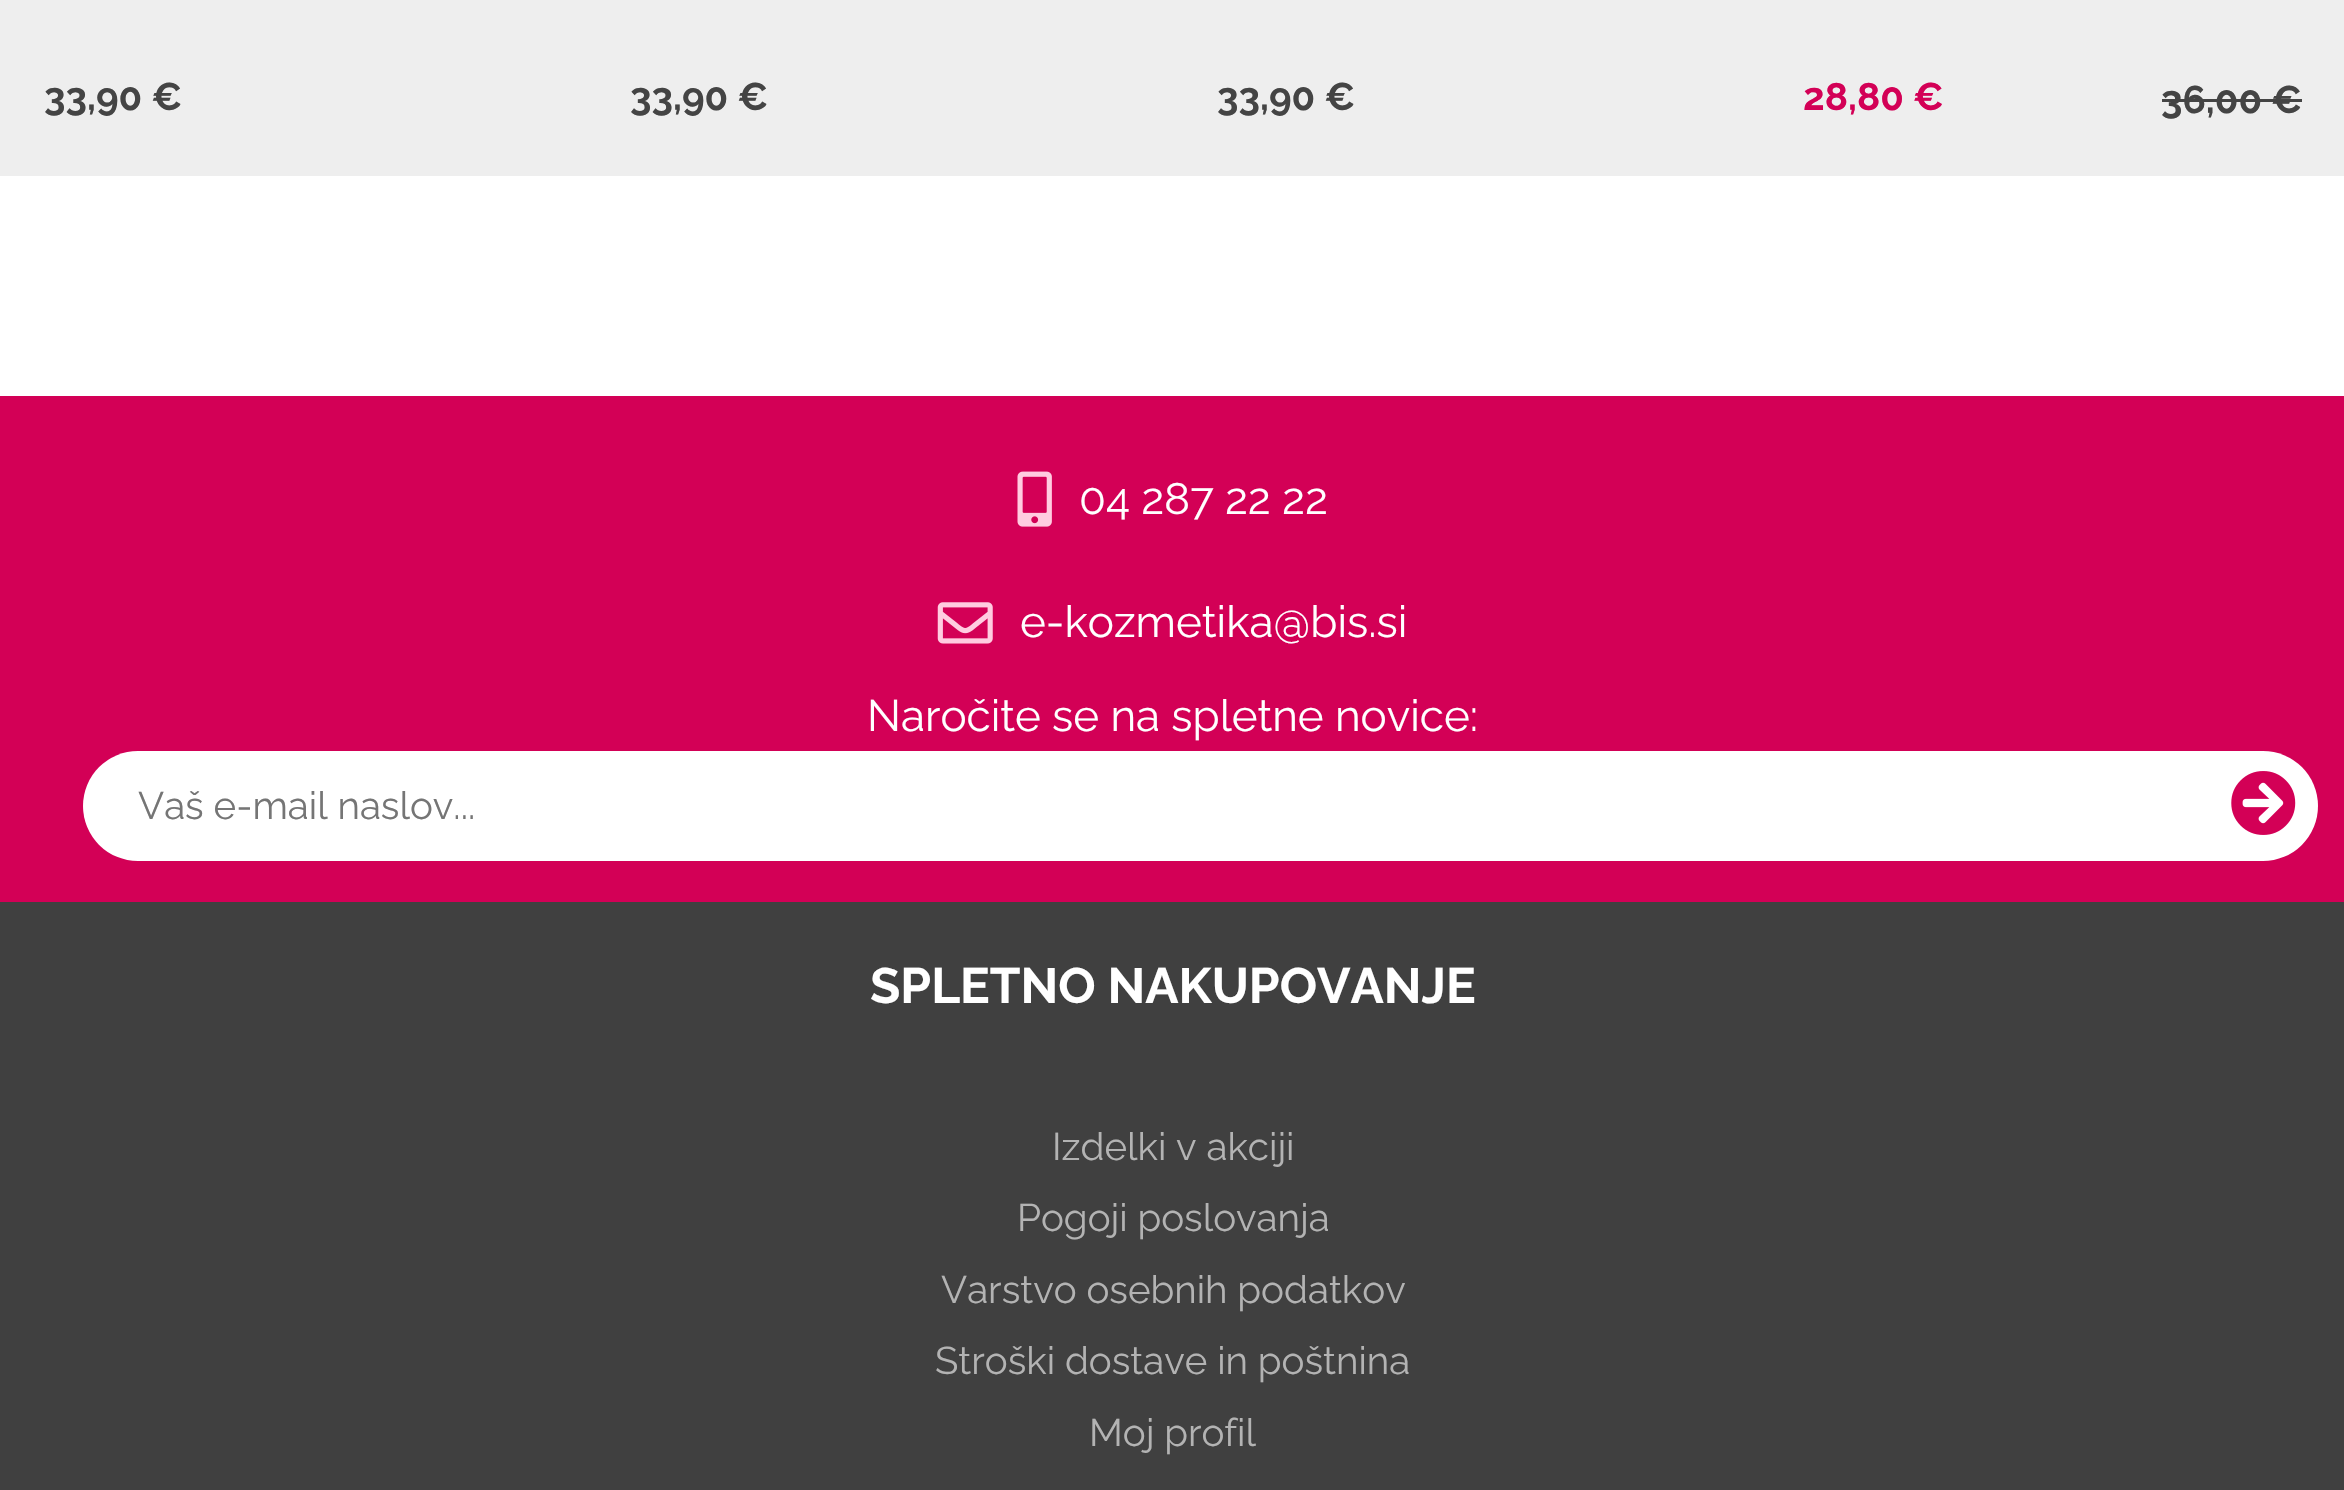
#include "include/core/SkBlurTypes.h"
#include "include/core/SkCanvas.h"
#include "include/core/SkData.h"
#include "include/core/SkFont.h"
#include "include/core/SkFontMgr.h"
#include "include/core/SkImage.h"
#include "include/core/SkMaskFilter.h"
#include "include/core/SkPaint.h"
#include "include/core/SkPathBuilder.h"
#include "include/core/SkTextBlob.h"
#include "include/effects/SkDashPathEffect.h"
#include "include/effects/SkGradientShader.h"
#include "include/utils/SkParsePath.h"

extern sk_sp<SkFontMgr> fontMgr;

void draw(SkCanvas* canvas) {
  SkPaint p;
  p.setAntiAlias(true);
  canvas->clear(SK_ColorWHITE);
  p.setColor(SkColorSetRGB(238, 238, 238));
  canvas->drawRect(SkRect::MakeLTRB(0, 0, 2344, 176), p);
  p.setColor(SkColorSetRGB(68, 68, 68));
  canvas->drawRect(SkRect::MakeLTRB(2162, 99, 2302, 102), p);
  p.setColor(SkColorSetRGB(64, 64, 64));
  canvas->drawRect(SkRect::MakeLTRB(0, 902, 2344, 1490), p);
  p.setColor(SkColorSetRGB(211, 0, 86));
  canvas->drawRect(SkRect::MakeLTRB(0, 396, 2344, 902), p);
  canvas->drawImageRect(SkImages::DeferredFromEncodedData(SkData::MakeFromFileName("images/1.png")), SkRect::MakeLTRB(1017, 471, 1052, 527), SkSamplingOptions());
  canvas->drawImageRect(SkImages::DeferredFromEncodedData(SkData::MakeFromFileName("images/2.png")), SkRect::MakeLTRB(937, 602, 993, 644), SkSamplingOptions());
  p.setColor(SK_ColorWHITE);
  canvas->drawRoundRect(SkRect::MakeLTRB(83, 751, 2318, 861), 55, 55, p);
  canvas->drawImageRect(SkImages::DeferredFromEncodedData(SkData::MakeFromFileName("images/3.png")), SkRect::MakeLTRB(2231, 771, 2296, 835), SkSamplingOptions());
  SkFont font1(fontMgr->matchFamilyStyle("Raleway", SkFontStyle::Bold()), 38.5f);
  font1.setSubpixel(true);
  p.setColor(SkColorSetRGB(68, 68, 68));
  canvas->drawString("33,90 €", 44, 110, font1, p);
  canvas->drawString("33,90 €", 630, 110, font1, p);
  canvas->drawString("33,90 €", 1217, 110, font1, p);
  p.setColor(SkColorSetRGB(211, 0, 86));
  canvas->drawString("28,80 €", 1803, 110, font1, p);
  p.setColor(SkColorSetRGB(68, 68, 68));
  canvas->drawString("36,00 €", 2161, 113, font1, p);
  SkFont font2(fontMgr->matchFamilyStyle("Raleway", SkFontStyle::Normal()), 44);
  font2.setSubpixel(true);
  p.setColor(SK_ColorWHITE);
  canvas->drawString("04 287 22 22", 1079, 514, font2, p);
  canvas->drawString("e-kozmetika@bis.si", 1020, 637, font2, p);
  canvas->drawString("Naročite se na spletne novice:", 867, 731, font2, p);
  SkFont font3(fontMgr->matchFamilyStyle("Raleway", SkFontStyle::Normal()), 38.5f);
  font3.setSubpixel(true);
  p.setColor(SkColorSetRGB(117, 117, 117));
  canvas->drawString("Vaš e-mail naslov...", 138, 819, font3, p);
  SkFont font4(fontMgr->matchFamilyStyle("Raleway", SkFontStyle::Bold()), 49.5f);
  font4.setSubpixel(true);
  p.setColor(SK_ColorWHITE);
  canvas->drawString("SPLETNO NAKUPOVANJE", 870, 1003, font4, p);
  p.setColor(SkColorSetRGB(179, 179, 179));
  canvas->drawString("Izdelki v akciji", 1052, 1160, font3, p);
  canvas->drawString("Pogoji poslovanja", 1017, 1231, font3, p);
  canvas->drawString("Varstvo osebnih podatkov", 941, 1303, font3, p);
  canvas->drawString("Stroški dostave in poštnina", 935, 1374, font3, p);
  canvas->drawString("Moj profil", 1089, 1446, font3, p);
}
